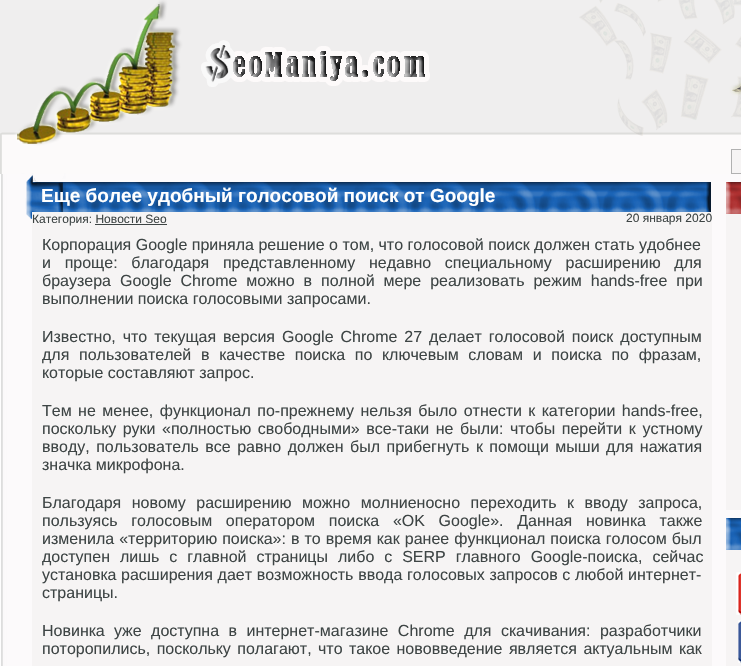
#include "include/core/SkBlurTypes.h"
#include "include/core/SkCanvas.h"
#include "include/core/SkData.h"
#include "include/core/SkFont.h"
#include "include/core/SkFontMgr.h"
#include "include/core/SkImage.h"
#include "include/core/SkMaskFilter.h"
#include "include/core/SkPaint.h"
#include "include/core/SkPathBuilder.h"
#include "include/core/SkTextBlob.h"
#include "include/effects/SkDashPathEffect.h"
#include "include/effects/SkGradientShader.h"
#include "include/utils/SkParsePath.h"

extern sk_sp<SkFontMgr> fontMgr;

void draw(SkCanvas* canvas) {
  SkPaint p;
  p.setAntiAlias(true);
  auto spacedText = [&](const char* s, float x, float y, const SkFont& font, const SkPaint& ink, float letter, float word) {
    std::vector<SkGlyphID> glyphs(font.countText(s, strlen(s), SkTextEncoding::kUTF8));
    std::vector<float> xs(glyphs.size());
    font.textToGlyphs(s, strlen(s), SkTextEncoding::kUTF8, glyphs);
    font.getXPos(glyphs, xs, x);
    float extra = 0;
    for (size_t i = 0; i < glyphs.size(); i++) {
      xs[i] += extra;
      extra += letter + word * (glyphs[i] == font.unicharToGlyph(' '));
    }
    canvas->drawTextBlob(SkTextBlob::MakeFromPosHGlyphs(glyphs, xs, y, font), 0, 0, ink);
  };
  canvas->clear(SK_ColorWHITE);
  canvas->drawImageRect(SkImages::DeferredFromEncodedData(SkData::MakeFromFileName("images/1.png")), SkRect::MakeLTRB(0, 0, 741, 174), SkSamplingOptions());
  canvas->drawImageRect(SkImages::DeferredFromEncodedData(SkData::MakeFromFileName("images/2.png")), SkRect::MakeLTRB(201, 40, 430, 87), SkSamplingOptions());
  canvas->drawImageRect(SkImages::DeferredFromEncodedData(SkData::MakeFromFileName("images/3.png")), SkRect::MakeLTRB(579, 0, 741, 136), SkSamplingOptions());
  canvas->drawImageRect(SkImages::DeferredFromEncodedData(SkData::MakeFromFileName("images/4.png")), SkRect::MakeLTRB(0, 174, 741, 666), SkSamplingOptions());
  canvas->drawImageRect(SkImages::DeferredFromEncodedData(SkData::MakeFromFileName("images/5.png")), SkRect::MakeLTRB(25, 174, 711, 219), SkSamplingOptions());
  p.setColor(SkColorSetRGB(246, 244, 244));
  canvas->drawRect(SkRect::MakeLTRB(32, 212, 712, 666), p);
  p.setColor(SkColorSetRGB(62, 69, 69));
  canvas->drawRect(SkRect::MakeLTRB(95, 224, 167, 225), p);
  p.setColor(SkColorSetRGB(246, 244, 244));
  canvas->drawRect(SkRect::MakeLTRB(731.5f, 149.5f, 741.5f, 173.5f), p);
  p.setStyle(SkPaint::kStroke_Style);
  p.setStrokeWidth(1);
  p.setColor(SkColorSetRGB(177, 177, 177));
  canvas->drawRect(SkRect::MakeLTRB(731.5f, 149.5f, 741.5f, 173.5f), p);
  canvas->drawImageRect(SkImages::DeferredFromEncodedData(SkData::MakeFromFileName("images/6.png")), SkRect::MakeLTRB(726, 182, 741, 214), SkSamplingOptions());
  p.setStyle(SkPaint::kFill_Style);
  p.setColor(SkColorSetRGB(246, 244, 244));
  canvas->drawRect(SkRect::MakeLTRB(726, 214, 741, 510), p);
  canvas->drawImageRect(SkImages::DeferredFromEncodedData(SkData::MakeFromFileName("images/7.png")), SkRect::MakeLTRB(726, 518, 741, 550), SkSamplingOptions());
  canvas->drawRect(SkRect::MakeLTRB(726, 550, 741, 666), p);
  canvas->drawImageRect(SkImages::DeferredFromEncodedData(SkData::MakeFromFileName("images/8.png")), SkRect::MakeLTRB(736, 572, 741, 615), SkSamplingOptions());
  canvas->drawImageRect(SkImages::DeferredFromEncodedData(SkData::MakeFromFileName("images/9.png")), SkRect::MakeLTRB(738, 620, 741, 663), SkSamplingOptions());
  SkFont font1(fontMgr->matchFamilyStyle("Liberation Sans", SkFontStyle::Bold()), 19);
  font1.setSubpixel(true);
  p.setColor(SK_ColorWHITE);
  canvas->drawString("Еще более удобный голосовой поиск от Google", 41, 202, font1, p);
  SkFont font2(fontMgr->matchFamilyStyle("Liberation Sans", SkFontStyle::Normal()), 12);
  font2.setSubpixel(true);
  p.setColor(SkColorSetRGB(62, 69, 69));
  canvas->drawString("Категория: Новости Seo", 32, 223, font2, p);
  canvas->drawString("20 января 2020", 626, 222, font2, p);
  SkFont font3(fontMgr->matchFamilyStyle("Liberation Sans", SkFontStyle::Normal()), 16);
  font3.setSubpixel(true);
  canvas->drawString("Корпорация Google приняла решение о том, что голосовой поиск должен стать удобнее", 42, 250, font3, p);
  spacedText("и проще: благодаря представленному недавно специальному расширению для", 42, 268, font3, p, 0, 9.25f);
  spacedText("браузера Google Chrome можно в полной мере реализовать режим hands-free при", 42, 286, font3, p, 0, 4.5f);
  canvas->drawString("выполнении поиска голосовыми запросами.", 42, 304, font3, p);
  spacedText("Известно, что текущая версия Google Chrome 27 делает голосовой поиск доступным", 42, 342, font3, p, 0, 2.5f);
  spacedText("для пользователей в качестве поиска по ключевым словам и поиска по фразам,", 42, 360, font3, p, 0, 5.25f);
  canvas->drawString("которые составляют запрос.", 42, 378, font3, p);
  spacedText("Тем не менее, функционал по-прежнему нельзя было отнести к категории hands-free,", 42, 416, font3, p, 0, 2);
  spacedText("поскольку руки «полностью свободными» все-таки не были: чтобы перейти к устному", 42, 434, font3, p, 0, 2.1f);
  spacedText("вводу, пользователь все равно должен был прибегнуть к помощи мыши для нажатия", 42, 452, font3, p, 0, 2);
  canvas->drawString("значка микрофона.", 42, 470, font3, p);
  spacedText("Благодаря новому расширению можно молниеносно переходить к вводу запроса,", 42, 508, font3, p, 0, 6);
  spacedText("пользуясь голосовым оператором поиска «OK Google». Данная новинка также", 42, 526, font3, p, 0, 9.25f);
  spacedText("изменила «территорию поиска»: в то время как ранее функционал поиска голосом был", 42, 544, font3, p, 0, 0.6f);
  spacedText("доступен лишь с главной страницы либо с SERP главного Google-поиска, сейчас", 42, 562, font3, p, 0, 5.5f);
  spacedText("установка расширения дает возможность ввода голосовых запросов с любой интернет-", 42, 580, font3, p, 0, 0.25f);
  canvas->drawString("страницы.", 42, 598, font3, p);
  spacedText("Новинка уже доступна в интернет-магазине Chrome для скачивания: разработчики", 42, 636, font3, p, 0, 5);
  spacedText("поторопились, поскольку полагают, что такое нововведение является актуальным как", 42, 654, font3, p, 0, 2);
}
